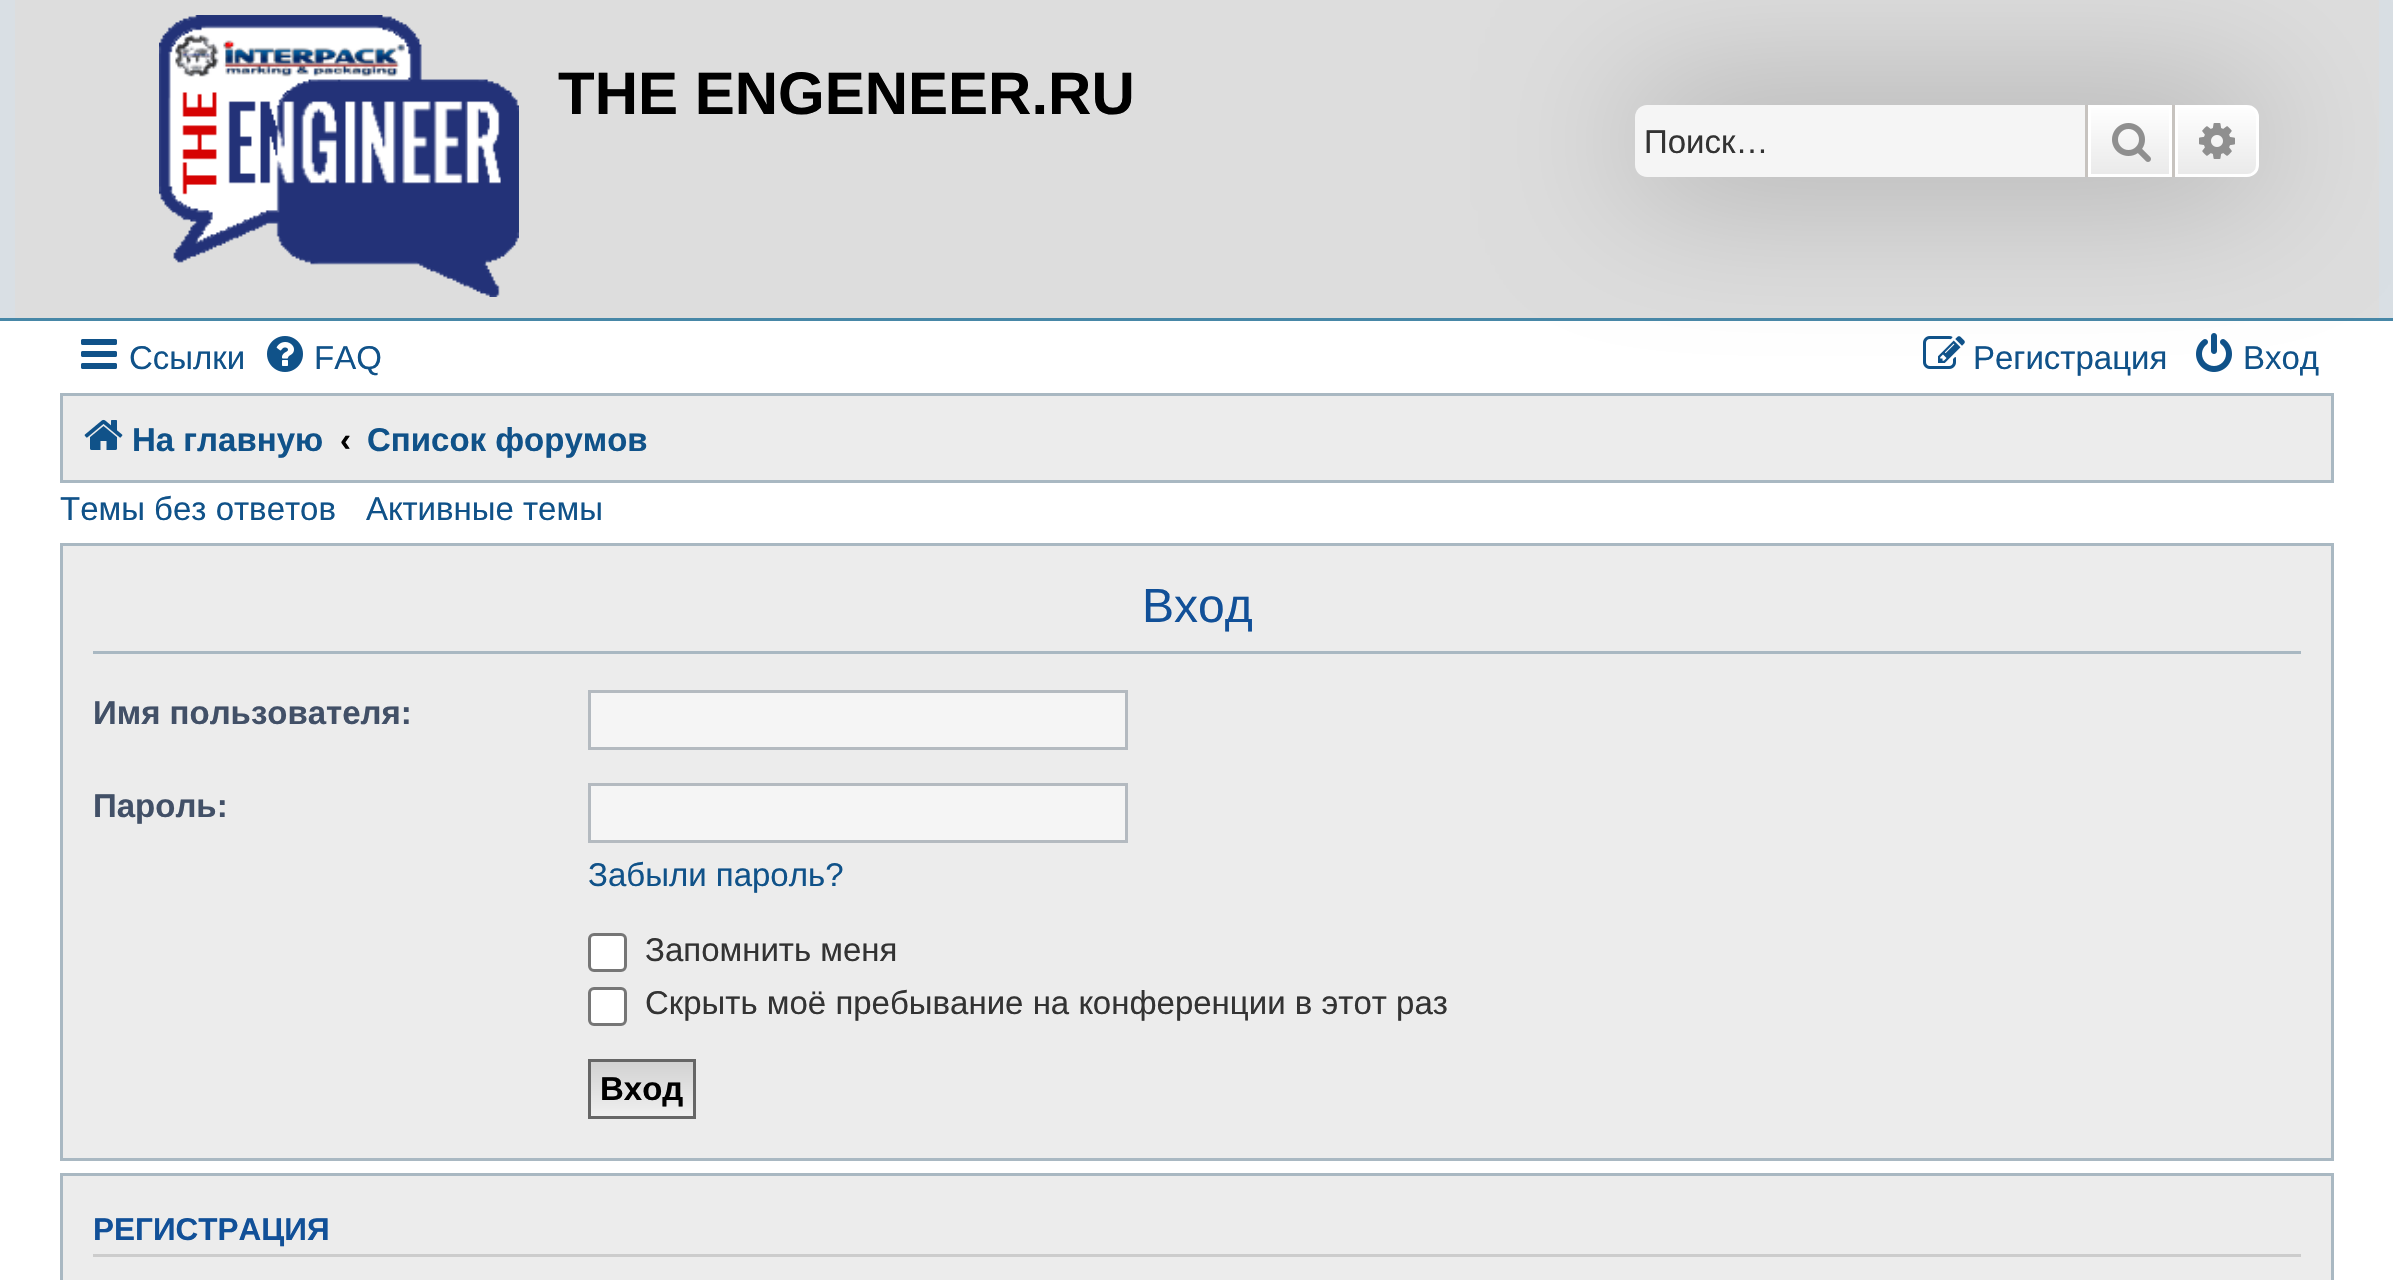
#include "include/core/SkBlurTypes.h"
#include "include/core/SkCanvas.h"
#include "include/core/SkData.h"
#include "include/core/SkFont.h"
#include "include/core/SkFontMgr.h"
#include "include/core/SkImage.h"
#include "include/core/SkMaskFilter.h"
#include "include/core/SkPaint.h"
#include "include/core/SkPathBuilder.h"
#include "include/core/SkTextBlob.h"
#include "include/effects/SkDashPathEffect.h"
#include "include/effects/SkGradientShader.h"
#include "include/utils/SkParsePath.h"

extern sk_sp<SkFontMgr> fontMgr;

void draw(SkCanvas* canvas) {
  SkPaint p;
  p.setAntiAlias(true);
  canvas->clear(SK_ColorWHITE);
  p.setColor(SkColorSetRGB(217, 223, 228));
  canvas->drawRect(SkRect::MakeLTRB(0, 0, 2393, 318), p);
  p.setColor(SkColorSetRGB(71, 135, 167));
  canvas->drawRect(SkRect::MakeLTRB(0, 318, 2393, 321), p);
  p.setColor(SkColorSetRGB(221, 221, 221));
  canvas->drawRect(SkRect::MakeLTRB(15, 0, 2379, 318), p);
  canvas->drawImageRect(SkImages::DeferredFromEncodedData(SkData::MakeFromFileName("images/1.png")), SkRect::MakeLTRB(159, 15, 519, 297), SkSamplingOptions());
  p.setColor(SkColorSetRGB(236, 236, 236));
  canvas->drawRect(SkRect::MakeLTRB(61.5f, 394.5f, 2332.5f, 481.5f), p);
  p.setStyle(SkPaint::kStroke_Style);
  p.setStrokeWidth(3);
  p.setColor(SkColorSetRGB(169, 184, 194));
  canvas->drawRect(SkRect::MakeLTRB(61.5f, 394.5f, 2332.5f, 481.5f), p);
  p.setStyle(SkPaint::kFill_Style);
  p.setColor(SkColorSetRGB(153, 153, 153));
  p.setMaskFilter(SkMaskFilter::MakeBlur(kNormal_SkBlurStyle, 75));
  canvas->drawRoundRect(SkRect::MakeLTRB(1635, 105, 2259, 177), 12, 12, p);
  p.setMaskFilter(nullptr);
  p.setColor(SkColorSetRGB(245, 245, 245));
  canvas->drawPath(SkPathBuilder().moveTo(1647, 105).lineTo(2085, 105).lineTo(2085, 177).lineTo(1647, 177).cubicTo(1640.5f, 177, 1635, 171.5f, 1635, 165).lineTo(1635, 117).cubicTo(1635, 110.5f, 1640.5f, 105, 1647, 105).close().detach(), p);
  {
    const SkColor colors[] = {SK_ColorWHITE, SkColorSetRGB(233, 233, 233)};
    const float stops[] = {0, 1};
    const SkPoint ends[] = {{2130, 105}, {2130, 177}};
    p.setShader(SkGradientShader::MakeLinear(ends, colors, stops, 2, SkTileMode::kClamp));
    p.setAlpha(255);
  }
  canvas->drawRect(SkRect::MakeLTRB(2091, 108, 2169, 174), p);
  p.setStyle(SkPaint::kStroke_Style);
  p.setShader(nullptr);
  p.setColor(SK_ColorWHITE);
  canvas->drawRect(SkRect::MakeLTRB(2089.5f, 106.5f, 2170.5f, 175.5f), p);
  p.setStyle(SkPaint::kFill_Style);
  p.setColor(SkColorSetRGB(199, 195, 191));
  canvas->drawRect(SkRect::MakeLTRB(2172, 105, 2175, 177), p);
  canvas->drawRect(SkRect::MakeLTRB(2085, 105, 2088, 177), p);
  canvas->drawImageRect(SkImages::DeferredFromEncodedData(SkData::MakeFromFileName("images/2.png")), SkRect::MakeLTRB(2112, 123, 2151, 162), SkSamplingOptions());
  {
    const SkColor colors[] = {SK_ColorWHITE, SkColorSetRGB(233, 233, 233)};
    const float stops[] = {0, 1};
    const SkPoint ends[] = {{2217, 105}, {2217, 177}};
    p.setShader(SkGradientShader::MakeLinear(ends, colors, stops, 2, SkTileMode::kClamp));
    p.setAlpha(255);
  }
  canvas->drawPath(SkPathBuilder().moveTo(2176.5f, 106.5f).lineTo(2247, 106.5f).cubicTo(2253, 106.5f, 2257.5f, 111, 2257.5f, 117).lineTo(2257.5f, 165).cubicTo(2257.5f, 171, 2253, 175.5f, 2247, 175.5f).lineTo(2176.5f, 175.5f).close().detach(), p);
  p.setStyle(SkPaint::kStroke_Style);
  p.setShader(nullptr);
  p.setColor(SK_ColorWHITE);
  canvas->drawPath(SkPathBuilder().moveTo(2176.5f, 106.5f).lineTo(2247, 106.5f).cubicTo(2253, 106.5f, 2257.5f, 111, 2257.5f, 117).lineTo(2257.5f, 165).cubicTo(2257.5f, 171, 2253, 175.5f, 2247, 175.5f).lineTo(2176.5f, 175.5f).close().detach(), p);
  canvas->drawImageRect(SkImages::DeferredFromEncodedData(SkData::MakeFromFileName("images/3.png")), SkRect::MakeLTRB(2199, 123, 2235, 159), SkSamplingOptions());
  canvas->drawImageRect(SkImages::DeferredFromEncodedData(SkData::MakeFromFileName("images/4.png")), SkRect::MakeLTRB(81, 339, 117, 369), SkSamplingOptions());
  canvas->drawImageRect(SkImages::DeferredFromEncodedData(SkData::MakeFromFileName("images/5.png")), SkRect::MakeLTRB(267, 336, 303, 372), SkSamplingOptions());
  canvas->drawImageRect(SkImages::DeferredFromEncodedData(SkData::MakeFromFileName("images/6.png")), SkRect::MakeLTRB(1923, 336, 1965, 369), SkSamplingOptions());
  canvas->drawImageRect(SkImages::DeferredFromEncodedData(SkData::MakeFromFileName("images/7.png")), SkRect::MakeLTRB(2196, 333, 2232, 372), SkSamplingOptions());
  canvas->drawImageRect(SkImages::DeferredFromEncodedData(SkData::MakeFromFileName("images/8.png")), SkRect::MakeLTRB(84, 419, 123, 450), SkSamplingOptions());
  p.setStyle(SkPaint::kFill_Style);
  p.setColor(SkColorSetRGB(236, 236, 236));
  canvas->drawRect(SkRect::MakeLTRB(61.5f, 544.5f, 2332.5f, 1159.5f), p);
  p.setStyle(SkPaint::kStroke_Style);
  p.setColor(SkColorSetRGB(169, 184, 194));
  canvas->drawRect(SkRect::MakeLTRB(61.5f, 544.5f, 2332.5f, 1159.5f), p);
  p.setStyle(SkPaint::kFill_Style);
  canvas->drawRect(SkRect::MakeLTRB(93, 651, 2301, 654), p);
  p.setColor(SkColorSetRGB(245, 245, 245));
  canvas->drawRect(SkRect::MakeLTRB(589.5f, 691.5f, 1126.5f, 748.5f), p);
  p.setStyle(SkPaint::kStroke_Style);
  p.setColor(SkColorSetRGB(180, 186, 192));
  canvas->drawRect(SkRect::MakeLTRB(589.5f, 691.5f, 1126.5f, 748.5f), p);
  p.setStyle(SkPaint::kFill_Style);
  p.setColor(SkColorSetRGB(245, 245, 245));
  canvas->drawRect(SkRect::MakeLTRB(589.5f, 784.5f, 1126.5f, 841.5f), p);
  p.setStyle(SkPaint::kStroke_Style);
  p.setColor(SkColorSetRGB(180, 186, 192));
  canvas->drawRect(SkRect::MakeLTRB(589.5f, 784.5f, 1126.5f, 841.5f), p);
  p.setStyle(SkPaint::kFill_Style);
  p.setColor(SK_ColorWHITE);
  canvas->drawRoundRect(SkRect::MakeLTRB(589.5f, 934.5f, 625.5f, 970.5f), 4.5f, 4.5f, p);
  p.setStyle(SkPaint::kStroke_Style);
  p.setColor(SkColorSetRGB(118, 118, 118));
  canvas->drawRoundRect(SkRect::MakeLTRB(589.5f, 934.5f, 625.5f, 970.5f), 4.5f, 4.5f, p);
  p.setStyle(SkPaint::kFill_Style);
  p.setColor(SK_ColorWHITE);
  canvas->drawRoundRect(SkRect::MakeLTRB(589.5f, 988.5f, 625.5f, 1024.5f), 4.5f, 4.5f, p);
  p.setStyle(SkPaint::kStroke_Style);
  p.setColor(SkColorSetRGB(118, 118, 118));
  canvas->drawRoundRect(SkRect::MakeLTRB(589.5f, 988.5f, 625.5f, 1024.5f), 4.5f, 4.5f, p);
  p.setStyle(SkPaint::kFill_Style);
  {
    const SkColor colors[] = {SkColorSetRGB(210, 210, 210), SkColorSetRGB(239, 239, 239)};
    const float stops[] = {0, 1};
    const SkPoint ends[] = {{642, 1062}, {642, 1116}};
    p.setShader(SkGradientShader::MakeLinear(ends, colors, stops, 2, SkTileMode::kClamp));
    p.setAlpha(255);
  }
  canvas->drawRect(SkRect::MakeLTRB(591, 1062, 693, 1116), p);
  p.setStyle(SkPaint::kStroke_Style);
  p.setShader(nullptr);
  p.setColor(SkColorSetRGB(102, 102, 102));
  canvas->drawRect(SkRect::MakeLTRB(589.5f, 1060.5f, 694.5f, 1117.5f), p);
  p.setStyle(SkPaint::kFill_Style);
  p.setColor(SkColorSetRGB(236, 236, 236));
  canvas->drawRect(SkRect::MakeLTRB(61.5f, 1174.5f, 2332.5f, 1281.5f), p);
  p.setStyle(SkPaint::kStroke_Style);
  p.setColor(SkColorSetRGB(169, 184, 194));
  canvas->drawRect(SkRect::MakeLTRB(61.5f, 1174.5f, 2332.5f, 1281.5f), p);
  p.setStyle(SkPaint::kFill_Style);
  p.setColor(SkColorSetRGB(204, 204, 204));
  canvas->drawRect(SkRect::MakeLTRB(93, 1254, 2301, 1257), p);
  SkFont font1(fontMgr->matchFamilyStyle("Liberation Sans", SkFontStyle::Bold()), 60);
  font1.setSubpixel(true);
  p.setColor(SK_ColorBLACK);
  canvas->drawString("THE ENGENEER.RU", 558, 114, font1, p);
  SkFont font2(fontMgr->matchFamilyStyle("Liberation Sans", SkFontStyle::Normal()), 33);
  font2.setSubpixel(true);
  p.setColor(SkColorSetRGB(51, 51, 51));
  canvas->drawString("Поиск…", 1644, 153, font2, p);
  p.setColor(SkColorSetRGB(16, 82, 137));
  canvas->drawString("Ссылки", 129, 369, font2, p);
  canvas->drawString("FAQ", 314, 369, font2, p);
  canvas->drawString("Регистрация", 1973, 369, font2, p);
  canvas->drawString("Вход", 2243, 369, font2, p);
  SkFont font3(fontMgr->matchFamilyStyle("Liberation Sans", SkFontStyle::Bold()), 33);
  font3.setSubpixel(true);
  canvas->drawString("На главную", 132, 451, font3, p);
  p.setColor(SK_ColorBLACK);
  canvas->drawString("‹", 340, 451, font3, p);
  p.setColor(SkColorSetRGB(16, 82, 137));
  canvas->drawString("Список форумов", 367, 451, font3, p);
  canvas->drawString("Темы без ответов", 60, 520, font2, p);
  canvas->drawString("Активные темы", 366, 520, font2, p);
  SkFont font4(fontMgr->matchFamilyStyle("Liberation Sans", SkFontStyle::Normal()), 48);
  font4.setSubpixel(true);
  p.setColor(SkColorSetRGB(17, 80, 152));
  canvas->drawString("Вход", 1142, 622, font4, p);
  p.setColor(SkColorSetRGB(66, 80, 103));
  canvas->drawString("Имя пользователя:", 93, 724, font3, p);
  canvas->drawString("Пароль:", 93, 817, font3, p);
  p.setColor(SkColorSetRGB(16, 82, 137));
  canvas->drawString("Забыли пароль?", 588, 886, font2, p);
  p.setColor(SkColorSetRGB(51, 51, 51));
  canvas->drawString("Запомнить меня", 645, 961, font2, p);
  canvas->drawString("Скрыть моё пребывание на конференции в этот раз", 645, 1014, font2, p);
  p.setColor(SK_ColorBLACK);
  canvas->drawString("Вход", 600, 1100, font3, p);
  SkFont font5(fontMgr->matchFamilyStyle("Liberation Sans", SkFontStyle::Bold()), 31.5f);
  font5.setSubpixel(true);
  p.setColor(SkColorSetRGB(17, 80, 152));
  canvas->drawString("РЕГИСТРАЦИЯ", 93, 1240, font5, p);
}
